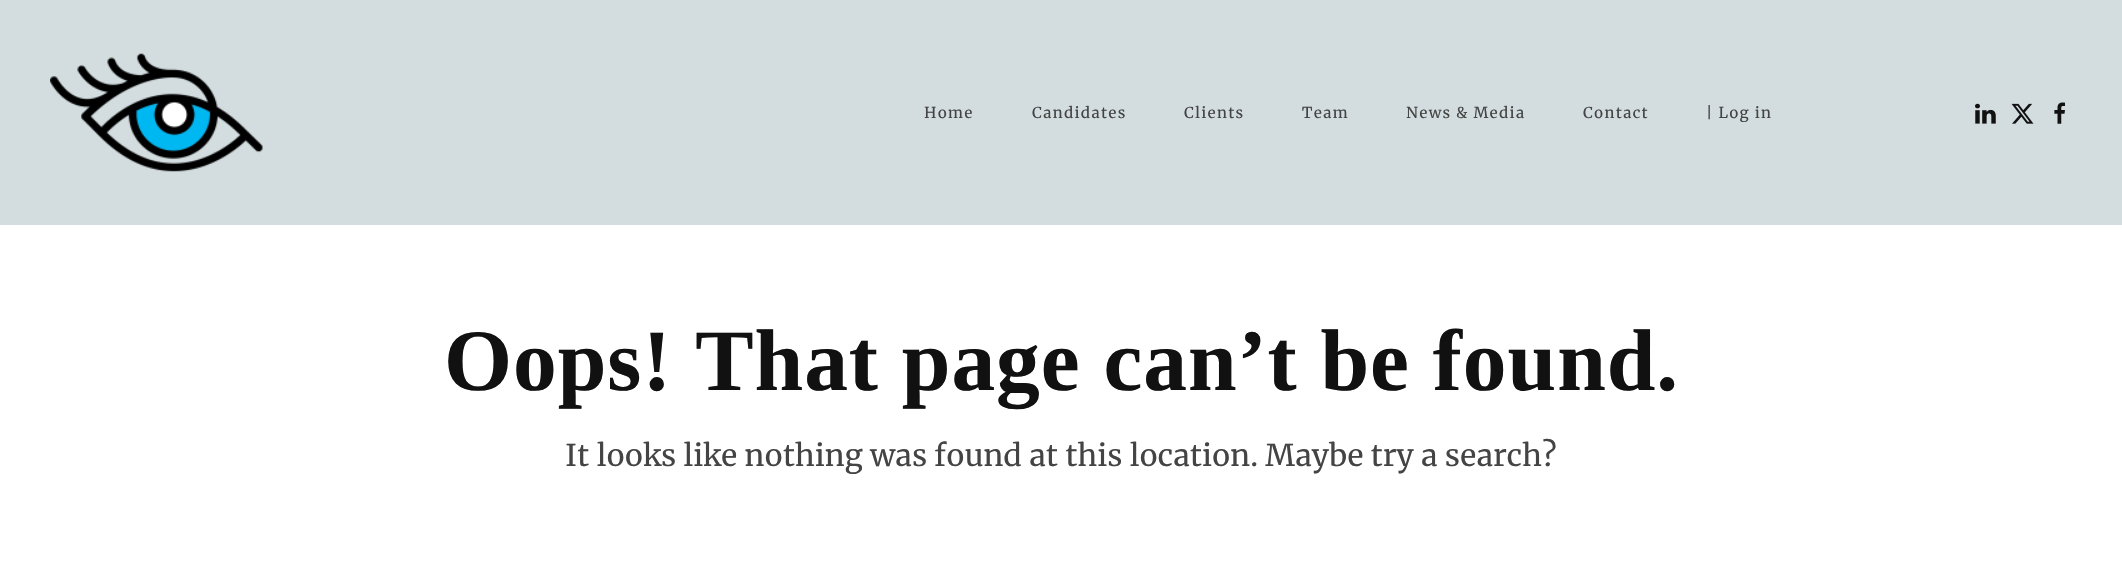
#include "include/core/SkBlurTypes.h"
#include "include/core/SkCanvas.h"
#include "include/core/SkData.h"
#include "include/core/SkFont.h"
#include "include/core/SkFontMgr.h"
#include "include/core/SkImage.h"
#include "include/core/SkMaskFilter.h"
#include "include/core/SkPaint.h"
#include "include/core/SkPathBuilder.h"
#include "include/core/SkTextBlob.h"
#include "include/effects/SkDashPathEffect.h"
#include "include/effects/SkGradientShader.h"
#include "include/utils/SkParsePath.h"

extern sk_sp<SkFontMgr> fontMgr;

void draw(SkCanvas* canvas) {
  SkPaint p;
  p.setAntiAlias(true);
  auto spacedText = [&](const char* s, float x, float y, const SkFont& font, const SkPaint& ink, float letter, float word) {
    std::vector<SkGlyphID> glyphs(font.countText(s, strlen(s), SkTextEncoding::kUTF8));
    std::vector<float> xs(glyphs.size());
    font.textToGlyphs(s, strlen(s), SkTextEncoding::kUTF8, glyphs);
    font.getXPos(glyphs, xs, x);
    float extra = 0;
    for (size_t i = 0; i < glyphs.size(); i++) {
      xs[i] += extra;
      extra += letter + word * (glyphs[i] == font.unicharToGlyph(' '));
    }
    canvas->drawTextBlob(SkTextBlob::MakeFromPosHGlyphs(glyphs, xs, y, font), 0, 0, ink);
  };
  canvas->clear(SK_ColorWHITE);
  p.setColor(SkColorSetRGB(211, 221, 223));
  canvas->drawRect(SkRect::MakeLTRB(0, 0, 2122, 225), p);
  canvas->drawImageRect(SkImages::DeferredFromEncodedData(SkData::MakeFromFileName("images/1.png")), SkRect::MakeLTRB(50, 53, 263, 172), SkSamplingOptions());
  canvas->drawImageRect(SkImages::DeferredFromEncodedData(SkData::MakeFromFileName("images/2.png")), SkRect::MakeLTRB(1975, 103, 1996, 124), SkSamplingOptions());
  canvas->drawImageRect(SkImages::DeferredFromEncodedData(SkData::MakeFromFileName("images/3.png")), SkRect::MakeLTRB(2011, 103, 2034, 124), SkSamplingOptions());
  canvas->drawImageRect(SkImages::DeferredFromEncodedData(SkData::MakeFromFileName("images/4.png")), SkRect::MakeLTRB(2054, 102, 2065, 124), SkSamplingOptions());
  SkFont font1(fontMgr->matchFamilyStyle("Merriweather", SkFontStyle::Normal()), 15);
  font1.setSubpixel(true);
  p.setColor(SkColorSetRGB(68, 68, 68));
  spacedText("Home", 924, 118, font1, p, 1.25f, 0);
  spacedText("Candidates", 1032, 118, font1, p, 1.25f, 0);
  spacedText("Clients", 1184, 118, font1, p, 1.25f, 0);
  spacedText("Team", 1302, 118, font1, p, 1.25f, 0);
  spacedText("News & Media", 1406, 118, font1, p, 1.25f, 0);
  spacedText("Contact", 1583, 118, font1, p, 1.25f, 0);
  spacedText("| Log in", 1706, 118, font1, p, 1.25f, 0);
  SkFont font2(fontMgr->matchFamilyStyle("Liberation Serif", SkFontStyle::Bold()), 87.5f);
  font2.setSubpixel(true);
  p.setColor(SkColorSetRGB(17, 17, 17));
  spacedText("Oops! That page can’t be found.", 444, 390, font2, p, 0.95f, 0);
  SkFont font3(fontMgr->matchFamilyStyle("Merriweather", SkFontStyle::Normal()), 30);
  font3.setSubpixel(true);
  p.setColor(SkColorSetRGB(68, 68, 68));
  canvas->drawString("It looks like nothing was found at this location. Maybe try a search?", 565, 466, font3, p);
}
